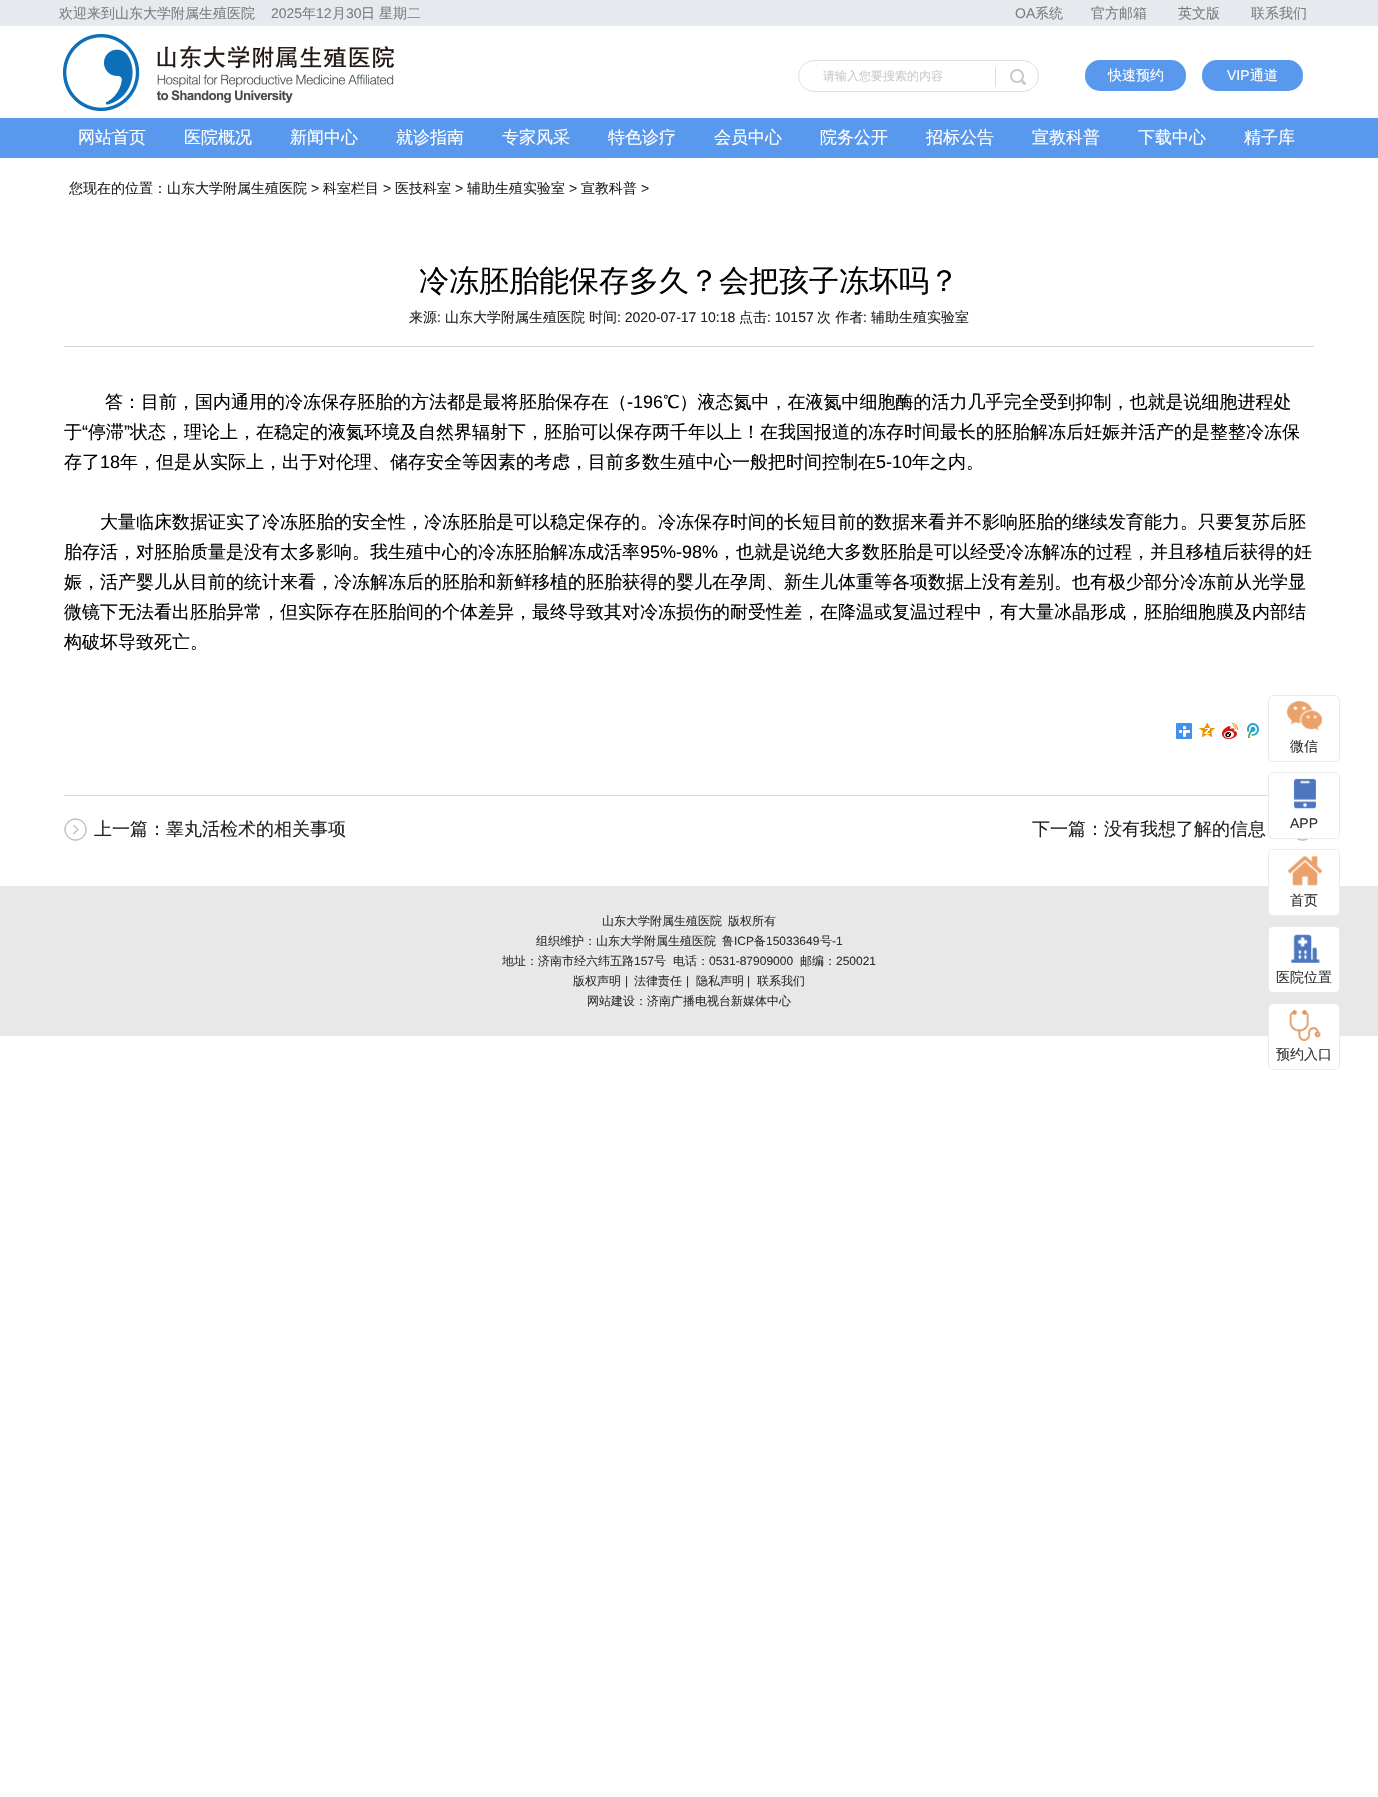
#include "include/core/SkBlurTypes.h"
#include "include/core/SkCanvas.h"
#include "include/core/SkData.h"
#include "include/core/SkFont.h"
#include "include/core/SkFontMgr.h"
#include "include/core/SkImage.h"
#include "include/core/SkMaskFilter.h"
#include "include/core/SkPaint.h"
#include "include/core/SkPathBuilder.h"
#include "include/core/SkTextBlob.h"
#include "include/effects/SkDashPathEffect.h"
#include "include/effects/SkGradientShader.h"
#include "include/utils/SkParsePath.h"

extern sk_sp<SkFontMgr> fontMgr;

void draw(SkCanvas* canvas) {
  SkPaint p;
  p.setAntiAlias(true);
  canvas->clear(SK_ColorWHITE);
  p.setColor(SkColorSetRGB(230, 233, 238));
  canvas->drawRect(SkRect::MakeLTRB(0, 0, 1378, 26), p);
  canvas->drawImageRect(SkImages::DeferredFromEncodedData(SkData::MakeFromFileName("images/1.png")), SkRect::MakeLTRB(63, 34, 394, 111), SkSamplingOptions());
  p.setStyle(SkPaint::kStroke_Style);
  p.setStrokeWidth(1);
  p.setColor(SkColorSetRGB(223, 223, 223));
  canvas->drawRoundRect(SkRect::MakeLTRB(798.5f, 60.5f, 1038.5f, 91.5f), 15.5f, 15.5f, p);
  canvas->drawImageRect(SkImages::DeferredFromEncodedData(SkData::MakeFromFileName("images/2.png")), SkRect::MakeLTRB(995, 67, 996, 87), SkSamplingOptions());
  canvas->drawImageRect(SkImages::DeferredFromEncodedData(SkData::MakeFromFileName("images/3.png")), SkRect::MakeLTRB(1010, 69, 1026, 85), SkSamplingOptions());
  p.setStyle(SkPaint::kFill_Style);
  p.setColor(SkColorSetRGB(88, 152, 237));
  canvas->drawRoundRect(SkRect::MakeLTRB(1085, 60, 1186, 91), 15, 15, p);
  canvas->drawRoundRect(SkRect::MakeLTRB(1202, 60, 1303, 91), 15, 15, p);
  canvas->drawRect(SkRect::MakeLTRB(0, 118, 1378, 158), p);
  p.setColor(SkColorSetRGB(214, 214, 214));
  canvas->drawRect(SkRect::MakeLTRB(64, 346, 1314, 347), p);
  canvas->drawImageRect(SkImages::DeferredFromEncodedData(SkData::MakeFromFileName("images/4.png")), SkRect::MakeLTRB(1176, 723, 1192, 739), SkSamplingOptions());
  canvas->drawImageRect(SkImages::DeferredFromEncodedData(SkData::MakeFromFileName("images/5.png")), SkRect::MakeLTRB(1199, 723, 1215, 737), SkSamplingOptions());
  canvas->drawImageRect(SkImages::DeferredFromEncodedData(SkData::MakeFromFileName("images/6.png")), SkRect::MakeLTRB(1222, 723, 1238, 739), SkSamplingOptions());
  canvas->drawImageRect(SkImages::DeferredFromEncodedData(SkData::MakeFromFileName("images/7.png")), SkRect::MakeLTRB(1247, 723, 1259, 738), SkSamplingOptions());
  canvas->drawRect(SkRect::MakeLTRB(64, 795, 1268, 796), p);
  canvas->drawImageRect(SkImages::DeferredFromEncodedData(SkData::MakeFromFileName("images/8.png")), SkRect::MakeLTRB(64, 818, 87, 841), SkSamplingOptions());
  canvas->drawImageRect(SkImages::DeferredFromEncodedData(SkData::MakeFromFileName("images/9.png")), SkRect::MakeLTRB(1297, 839, 1308, 841), SkSamplingOptions());
  p.setColor(SkColorSetRGB(232, 232, 232));
  canvas->drawRect(SkRect::MakeLTRB(0, 886, 1378, 1036), p);
  p.setStyle(SkPaint::kStroke_Style);
  p.setColor(SkColorSetRGB(235, 235, 235));
  canvas->drawRoundRect(SkRect::MakeLTRB(1268.5f, 695.5f, 1339.5f, 761.5f), 4.5f, 4.5f, p);
  canvas->drawImageRect(SkImages::DeferredFromEncodedData(SkData::MakeFromFileName("images/10.png")), SkRect::MakeLTRB(1287, 701, 1322, 731), SkSamplingOptions());
  canvas->drawRoundRect(SkRect::MakeLTRB(1268.5f, 772.5f, 1339.5f, 838.5f), 4.5f, 4.5f, p);
  canvas->drawImageRect(SkImages::DeferredFromEncodedData(SkData::MakeFromFileName("images/11.png")), SkRect::MakeLTRB(1293, 778, 1316, 809), SkSamplingOptions());
  p.setStyle(SkPaint::kFill_Style);
  p.setColor(SK_ColorWHITE);
  canvas->drawRoundRect(SkRect::MakeLTRB(1268.5f, 849.5f, 1339.5f, 915.5f), 4.5f, 4.5f, p);
  p.setStyle(SkPaint::kStroke_Style);
  p.setColor(SkColorSetRGB(235, 235, 235));
  canvas->drawRoundRect(SkRect::MakeLTRB(1268.5f, 849.5f, 1339.5f, 915.5f), 4.5f, 4.5f, p);
  canvas->drawImageRect(SkImages::DeferredFromEncodedData(SkData::MakeFromFileName("images/12.png")), SkRect::MakeLTRB(1287, 855, 1322, 886), SkSamplingOptions());
  p.setStyle(SkPaint::kFill_Style);
  p.setColor(SK_ColorWHITE);
  canvas->drawRoundRect(SkRect::MakeLTRB(1268.5f, 926.5f, 1339.5f, 992.5f), 4.5f, 4.5f, p);
  p.setStyle(SkPaint::kStroke_Style);
  p.setColor(SkColorSetRGB(235, 235, 235));
  canvas->drawRoundRect(SkRect::MakeLTRB(1268.5f, 926.5f, 1339.5f, 992.5f), 4.5f, 4.5f, p);
  canvas->drawImageRect(SkImages::DeferredFromEncodedData(SkData::MakeFromFileName("images/13.png")), SkRect::MakeLTRB(1291, 934, 1320, 963), SkSamplingOptions());
  p.setStyle(SkPaint::kFill_Style);
  p.setColor(SK_ColorWHITE);
  canvas->drawRoundRect(SkRect::MakeLTRB(1268.5f, 1003.5f, 1339.5f, 1069.5f), 4.5f, 4.5f, p);
  p.setStyle(SkPaint::kStroke_Style);
  p.setColor(SkColorSetRGB(235, 235, 235));
  canvas->drawRoundRect(SkRect::MakeLTRB(1268.5f, 1003.5f, 1339.5f, 1069.5f), 4.5f, 4.5f, p);
  canvas->drawImageRect(SkImages::DeferredFromEncodedData(SkData::MakeFromFileName("images/14.png")), SkRect::MakeLTRB(1289, 1009, 1321, 1041), SkSamplingOptions());
  SkFont font1(fontMgr->matchFamilyStyle("WenQuanYi Zen Hei", SkFontStyle(500, SkFontStyle::kNormal_Width, SkFontStyle::kUpright_Slant)), 14);
  font1.setSubpixel(true);
  p.setStyle(SkPaint::kFill_Style);
  p.setColor(SkColorSetRGB(125, 125, 125));
  canvas->drawString("欢迎来到山东大学附属生殖医院", 59, 18, font1, p);
  SkFont font2(fontMgr->matchFamilyStyle("Liberation Sans", SkFontStyle::Normal()), 14);
  font2.setSubpixel(true);
  canvas->drawString("2025", 271, 18, font2, p);
  canvas->drawString("年", 302, 18, font1, p);
  canvas->drawString("12", 316, 18, font2, p);
  canvas->drawString("月", 332, 18, font1, p);
  canvas->drawString("30", 346, 18, font2, p);
  canvas->drawString("日", 361, 18, font1, p);
  canvas->drawString("星期二", 379, 18, font1, p);
  canvas->drawString("OA", 1015, 18, font2, p);
  canvas->drawString("系统", 1035, 18, font1, p);
  canvas->drawString("官方邮箱", 1091, 18, font1, p);
  canvas->drawString("英文版", 1178, 18, font1, p);
  canvas->drawString("联系我们", 1251, 18, font1, p);
  SkFont font3(fontMgr->matchFamilyStyle("WenQuanYi Zen Hei", SkFontStyle(500, SkFontStyle::kNormal_Width, SkFontStyle::kUpright_Slant)), 12);
  font3.setSubpixel(true);
  p.setColor(SkColorSetRGB(203, 203, 203));
  canvas->drawString("请输入您要搜索的内容", 823, 80, font3, p);
  p.setColor(SK_ColorWHITE);
  canvas->drawString("快速预约", 1108, 80, font1, p);
  canvas->drawString("VIP", 1227, 80, font2, p);
  canvas->drawString("通道", 1250, 80, font1, p);
  SkFont font4(fontMgr->matchFamilyStyle("WenQuanYi Zen Hei", SkFontStyle(500, SkFontStyle::kNormal_Width, SkFontStyle::kUpright_Slant)), 17);
  font4.setSubpixel(true);
  canvas->drawString("网站首页", 78, 143, font4, p);
  canvas->drawString("医院概况", 184, 143, font4, p);
  canvas->drawString("新闻中心", 290, 143, font4, p);
  canvas->drawString("就诊指南", 396, 143, font4, p);
  canvas->drawString("专家风采", 502, 143, font4, p);
  canvas->drawString("特色诊疗", 608, 143, font4, p);
  canvas->drawString("会员中心", 714, 143, font4, p);
  canvas->drawString("院务公开", 820, 143, font4, p);
  canvas->drawString("招标公告", 926, 143, font4, p);
  canvas->drawString("宣教科普", 1032, 143, font4, p);
  canvas->drawString("下载中心", 1138, 143, font4, p);
  canvas->drawString("精子库", 1244, 143, font4, p);
  p.setColor(SkColorSetRGB(34, 34, 34));
  canvas->drawString("您现在的位置：山东大学附属生殖医院", 69, 193, font1, p);
  canvas->drawString(">", 311, 193, font2, p);
  canvas->drawString("科室栏目", 323, 193, font1, p);
  canvas->drawString(">", 383, 193, font2, p);
  canvas->drawString("医技科室", 395, 193, font1, p);
  canvas->drawString(">", 455, 193, font2, p);
  canvas->drawString("辅助生殖实验室", 467, 193, font1, p);
  canvas->drawString(">", 569, 193, font2, p);
  canvas->drawString("宣教科普", 581, 193, font1, p);
  canvas->drawString(">", 641, 193, font2, p);
  SkFont font5(fontMgr->matchFamilyStyle("WenQuanYi Zen Hei", SkFontStyle(500, SkFontStyle::kNormal_Width, SkFontStyle::kUpright_Slant)), 30);
  font5.setSubpixel(true);
  p.setColor(SK_ColorBLACK);
  canvas->drawString("冷冻胚胎能保存多久？会把孩子冻坏吗？", 419, 291, font5, p);
  p.setColor(SkColorSetRGB(34, 34, 34));
  canvas->drawString("来源", 409, 322, font1, p);
  canvas->drawString(":", 437, 322, font2, p);
  canvas->drawString("山东大学附属生殖医院", 445, 322, font1, p);
  canvas->drawString("时间", 589, 322, font1, p);
  canvas->drawString(": 2020-07-17 10:18", 617, 322, font2, p);
  canvas->drawString("点击", 739, 322, font1, p);
  canvas->drawString(": 10157", 767, 322, font2, p);
  canvas->drawString("次 作者", 817, 322, font1, p);
  canvas->drawString(":", 863, 322, font2, p);
  canvas->drawString("辅助生殖实验室", 871, 322, font1, p);
  SkFont font6(fontMgr->matchFamilyStyle("WenQuanYi Zen Hei", SkFontStyle(500, SkFontStyle::kNormal_Width, SkFontStyle::kUpright_Slant)), 18);
  font6.setSubpixel(true);
  p.setColor(SK_ColorBLACK);
  canvas->drawString("答：目前，国内通用的冷冻保存胚胎的方法都是最将胚胎保存在（", 105, 408, font6, p);
  SkFont font7(fontMgr->matchFamilyStyle("Liberation Sans", SkFontStyle::Normal()), 18);
  font7.setSubpixel(true);
  canvas->drawString("-196", 627, 408, font7, p);
  canvas->drawString("℃）液态氮中，在液氮中细胞酶的活力几乎完全受到抑制，也就是说细胞进程处", 663, 408, font6, p);
  canvas->drawString("于", 64, 438, font6, p);
  canvas->drawString("“", 82, 438, font7, p);
  canvas->drawString("停滞", 88, 438, font6, p);
  canvas->drawString("”", 124, 438, font7, p);
  canvas->drawString("状态，理论上，在稳定的液氮环境及自然界辐射下，胚胎可以保存两千年以上！在我国报道的冻存时间最长的胚胎解冻后妊娠并活产的是整整冷冻保", 130, 438, font6, p);
  canvas->drawString("存了", 64, 468, font6, p);
  canvas->drawString("18", 100, 468, font7, p);
  canvas->drawString("年，但是从实际上，出于对伦理、储存安全等因素的考虑，目前多数生殖中心一般把时间控制在", 120, 468, font6, p);
  canvas->drawString("5-10", 876, 468, font7, p);
  canvas->drawString("年之内。", 912, 468, font6, p);
  canvas->drawString("大量临床数据证实了冷冻胚胎的安全性，冷冻胚胎是可以稳定保存的。冷冻保存时间的长短目前的数据来看并不影响胚胎的继续发育能力。只要复苏后胚", 100, 528, font6, p);
  canvas->drawString("胎存活，对胚胎质量是没有太多影响。我生殖中心的冷冻胚胎解冻成活率", 64, 558, font6, p);
  canvas->drawString("95%-98%", 640, 558, font7, p);
  canvas->drawString("，也就是说绝大多数胚胎是可以经受冷冻解冻的过程，并且移植后获得的妊", 718, 558, font6, p);
  canvas->drawString("娠，活产婴儿从目前的统计来看，冷冻解冻后的胚胎和新鲜移植的胚胎获得的婴儿在孕周、新生儿体重等各项数据上没有差别。也有极少部分冷冻前从光学显", 64, 588, font6, p);
  canvas->drawString("微镜下无法看出胚胎异常，但实际存在胚胎间的个体差异，最终导致其对冷冻损伤的耐受性差，在降温或复温过程中，有大量冰晶形成，胚胎细胞膜及内部结", 64, 618, font6, p);
  canvas->drawString("构破坏导致死亡。", 64, 648, font6, p);
  p.setColor(SkColorSetRGB(34, 34, 34));
  canvas->drawString("上一篇：睾丸活检术的相关事项", 94, 835, font6, p);
  canvas->drawString("下一篇：没有我想了解的信息", 1032, 835, font6, p);
  p.setColor(SkColorSetRGB(48, 48, 48));
  canvas->drawString("山东大学附属生殖医院", 602, 925, font3, p);
  canvas->drawString("版权所有", 728, 925, font3, p);
  canvas->drawString("组织维护：山东大学附属生殖医院", 536, 945, font3, p);
  canvas->drawString("鲁", 722, 945, font3, p);
  SkFont font8(fontMgr->matchFamilyStyle("Liberation Sans", SkFontStyle::Normal()), 12);
  font8.setSubpixel(true);
  canvas->drawString("ICP", 734, 945, font8, p);
  canvas->drawString("备", 754, 945, font3, p);
  canvas->drawString("15033649", 766, 945, font8, p);
  canvas->drawString("号", 820, 945, font3, p);
  canvas->drawString("-1", 832, 945, font8, p);
  canvas->drawString("地址：济南市经六纬五路", 502, 965, font3, p);
  canvas->drawString("157", 634, 965, font8, p);
  canvas->drawString("号", 654, 965, font3, p);
  canvas->drawString("电话：", 673, 965, font3, p);
  canvas->drawString("0531-87909000", 709, 965, font8, p);
  canvas->drawString("邮编：", 800, 965, font3, p);
  canvas->drawString("250021", 836, 965, font8, p);
  canvas->drawString("版权声明", 573, 985, font3, p);
  canvas->drawString("|", 625, 985, font8, p);
  canvas->drawString("法律责任", 634, 985, font3, p);
  canvas->drawString("|", 686, 985, font8, p);
  canvas->drawString("隐私声明", 696, 985, font3, p);
  canvas->drawString("|", 747, 985, font8, p);
  canvas->drawString("联系我们", 757, 985, font3, p);
  canvas->drawString("网站建设：济南广播电视台新媒体中心", 587, 1005, font3, p);
  canvas->drawString("微信", 1290, 751, font1, p);
  canvas->drawString("APP", 1290, 828, font2, p);
  canvas->drawString("首页", 1290, 905, font1, p);
  canvas->drawString("医院位置", 1276, 982, font1, p);
  canvas->drawString("预约入口", 1276, 1059, font1, p);
}
